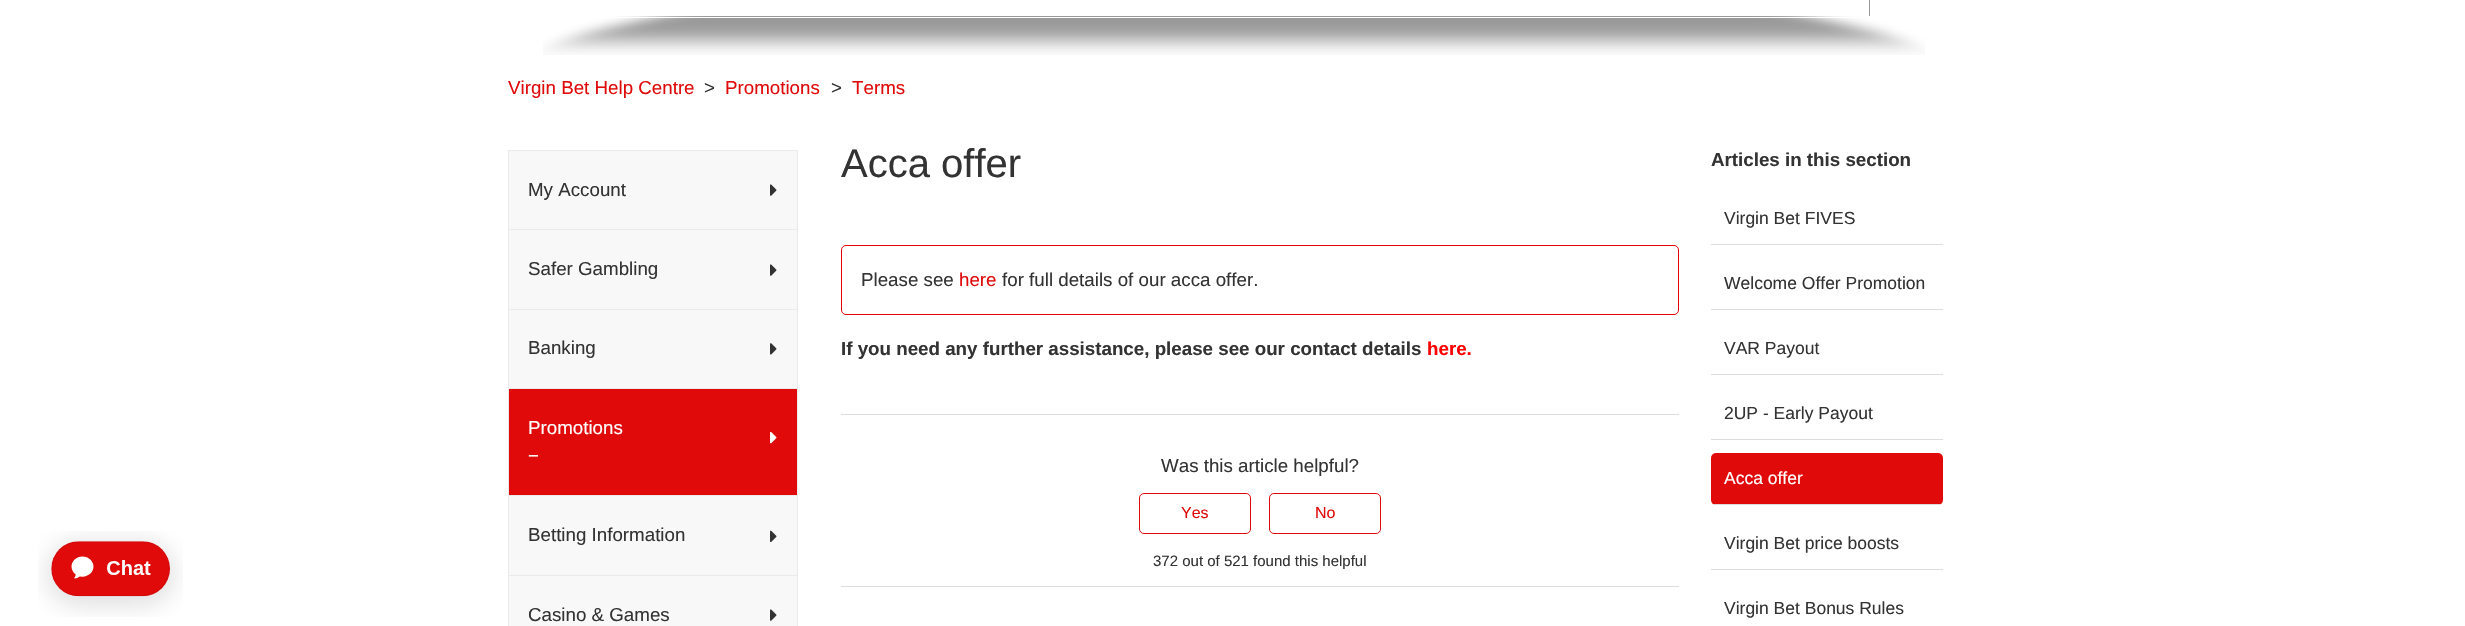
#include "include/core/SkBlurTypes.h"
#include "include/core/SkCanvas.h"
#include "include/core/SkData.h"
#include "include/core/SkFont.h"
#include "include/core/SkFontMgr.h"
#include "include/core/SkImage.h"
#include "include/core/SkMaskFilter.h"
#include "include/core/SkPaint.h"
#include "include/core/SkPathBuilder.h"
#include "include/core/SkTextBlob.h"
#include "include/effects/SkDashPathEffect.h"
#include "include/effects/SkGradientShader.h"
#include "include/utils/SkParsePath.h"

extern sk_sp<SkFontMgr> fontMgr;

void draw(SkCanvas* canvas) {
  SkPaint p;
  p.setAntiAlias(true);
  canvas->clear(SK_ColorWHITE);
  canvas->drawImageRect(SkImages::DeferredFromEncodedData(SkData::MakeFromFileName("images/1.png")), SkRect::MakeLTRB(543, 16, 1925, 55), SkSamplingOptions());
  p.setStyle(SkPaint::kStroke_Style);
  p.setStrokeWidth(1);
  p.setColor(SK_ColorWHITE);
  canvas->drawRect(SkRect::MakeLTRB(508.5f, -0.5f, 1957.5f, 17.5f), p);
  p.setStyle(SkPaint::kFill_Style);
  p.setColor(SkColorSetRGB(153, 153, 153));
  canvas->drawRect(SkRect::MakeLTRB(1869, 0, 1870, 16), p);
  canvas->drawImageRect(SkImages::DeferredFromEncodedData(SkData::MakeFromFileName("images/2.png")), SkRect::MakeLTRB(38, 531, 183, 617), SkSamplingOptions());
  p.setColor(SkColorSetRGB(248, 248, 248));
  canvas->drawRect(SkRect::MakeLTRB(508.5f, 150.5f, 797.5f, 229.5f), p);
  p.setStyle(SkPaint::kStroke_Style);
  p.setColor(SkColorSetRGB(233, 234, 233));
  canvas->drawRect(SkRect::MakeLTRB(508.5f, 150.5f, 797.5f, 229.5f), p);
  canvas->drawImageRect(SkImages::DeferredFromEncodedData(SkData::MakeFromFileName("images/3.png")), SkRect::MakeLTRB(770, 184, 777, 196), SkSamplingOptions());
  p.setStyle(SkPaint::kFill_Style);
  p.setColor(SkColorSetRGB(248, 248, 248));
  canvas->drawRect(SkRect::MakeLTRB(508.5f, 229.5f, 797.5f, 309.5f), p);
  p.setStyle(SkPaint::kStroke_Style);
  p.setColor(SkColorSetRGB(233, 234, 233));
  canvas->drawRect(SkRect::MakeLTRB(508.5f, 229.5f, 797.5f, 309.5f), p);
  canvas->drawImageRect(SkImages::DeferredFromEncodedData(SkData::MakeFromFileName("images/3.png")), SkRect::MakeLTRB(770, 264, 777, 276), SkSamplingOptions());
  p.setStyle(SkPaint::kFill_Style);
  p.setColor(SkColorSetRGB(248, 248, 248));
  canvas->drawRect(SkRect::MakeLTRB(508.5f, 309.5f, 797.5f, 388.5f), p);
  p.setStyle(SkPaint::kStroke_Style);
  p.setColor(SkColorSetRGB(233, 234, 233));
  canvas->drawRect(SkRect::MakeLTRB(508.5f, 309.5f, 797.5f, 388.5f), p);
  canvas->drawImageRect(SkImages::DeferredFromEncodedData(SkData::MakeFromFileName("images/4.png")), SkRect::MakeLTRB(770, 343, 777, 355), SkSamplingOptions());
  p.setStyle(SkPaint::kFill_Style);
  p.setColor(SkColorSetRGB(225, 10, 10));
  canvas->drawRect(SkRect::MakeLTRB(508.5f, 388.5f, 797.5f, 495.5f), p);
  p.setStyle(SkPaint::kStroke_Style);
  p.setColor(SkColorSetRGB(233, 234, 233));
  canvas->drawRect(SkRect::MakeLTRB(508.5f, 388.5f, 797.5f, 495.5f), p);
  canvas->drawImageRect(SkImages::DeferredFromEncodedData(SkData::MakeFromFileName("images/5.png")), SkRect::MakeLTRB(770, 431, 777, 444), SkSamplingOptions());
  p.setStyle(SkPaint::kFill_Style);
  p.setColor(SkColorSetRGB(248, 248, 248));
  canvas->drawRect(SkRect::MakeLTRB(508.5f, 495.5f, 797.5f, 575.5f), p);
  p.setStyle(SkPaint::kStroke_Style);
  p.setColor(SkColorSetRGB(233, 234, 233));
  canvas->drawRect(SkRect::MakeLTRB(508.5f, 495.5f, 797.5f, 575.5f), p);
  canvas->drawImageRect(SkImages::DeferredFromEncodedData(SkData::MakeFromFileName("images/6.png")), SkRect::MakeLTRB(770, 530, 777, 543), SkSamplingOptions());
  p.setStyle(SkPaint::kFill_Style);
  p.setColor(SkColorSetRGB(248, 248, 248));
  canvas->drawRect(SkRect::MakeLTRB(508.5f, 575.5f, 797.5f, 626.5f), p);
  p.setStyle(SkPaint::kStroke_Style);
  p.setColor(SkColorSetRGB(233, 234, 233));
  canvas->drawRect(SkRect::MakeLTRB(508.5f, 575.5f, 797.5f, 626.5f), p);
  canvas->drawImageRect(SkImages::DeferredFromEncodedData(SkData::MakeFromFileName("images/3.png")), SkRect::MakeLTRB(770, 609, 777, 621), SkSamplingOptions());
  p.setColor(SkColorSetRGB(230, 0, 0));
  canvas->drawRoundRect(SkRect::MakeLTRB(841.5f, 245.5f, 1678.5f, 314.5f), 4.5f, 4.5f, p);
  p.setStyle(SkPaint::kFill_Style);
  p.setColor(SkColorSetRGB(221, 221, 221));
  canvas->drawRect(SkRect::MakeLTRB(841, 414, 1679, 415), p);
  p.setStyle(SkPaint::kStroke_Style);
  p.setColor(SkColorSetRGB(225, 10, 10));
  canvas->drawRoundRect(SkRect::MakeLTRB(1139.5f, 493.5f, 1250.5f, 533.5f), 4.5f, 4.5f, p);
  canvas->drawRoundRect(SkRect::MakeLTRB(1269.5f, 493.5f, 1380.5f, 533.5f), 4.5f, 4.5f, p);
  p.setStyle(SkPaint::kFill_Style);
  p.setColor(SkColorSetRGB(221, 221, 221));
  canvas->drawRect(SkRect::MakeLTRB(841, 586, 1679, 587), p);
  canvas->drawRect(SkRect::MakeLTRB(1711, 244, 1943, 245), p);
  canvas->drawRect(SkRect::MakeLTRB(1711, 309, 1943, 310), p);
  canvas->drawRect(SkRect::MakeLTRB(1711, 374, 1943, 375), p);
  canvas->drawRect(SkRect::MakeLTRB(1711, 439, 1943, 440), p);
  p.setColor(SkColorSetRGB(225, 10, 10));
  canvas->drawRoundRect(SkRect::MakeLTRB(1711, 453, 1943, 505), 5, 5, p);
  p.setColor(SkColorSetRGB(221, 221, 221));
  canvas->drawRect(SkRect::MakeLTRB(1714, 504, 1940, 505), p);
  canvas->drawRect(SkRect::MakeLTRB(1711, 569, 1943, 570), p);
  SkFont font1(fontMgr->matchFamilyStyle("Liberation Sans", SkFontStyle::Normal()), 18.75f);
  font1.setSubpixel(true);
  p.setColor(SkColorSetRGB(225, 10, 10));
  canvas->drawString("Virgin Bet Help Centre", 508, 94, font1, p);
  p.setColor(SkColorSetRGB(51, 51, 51));
  canvas->drawString(">", 704, 94, font1, p);
  p.setColor(SkColorSetRGB(225, 10, 10));
  canvas->drawString("Promotions", 725, 94, font1, p);
  p.setColor(SkColorSetRGB(51, 51, 51));
  canvas->drawString(">", 831, 94, font1, p);
  p.setColor(SkColorSetRGB(225, 10, 10));
  canvas->drawString("Terms", 852, 94, font1, p);
  p.setColor(SkColorSetRGB(51, 51, 51));
  canvas->drawString("My Account", 528, 196, font1, p);
  canvas->drawString("Safer Gambling", 528, 275, font1, p);
  canvas->drawString("Banking", 528, 354, font1, p);
  p.setColor(SK_ColorWHITE);
  canvas->drawString("Promotions", 528, 434, font1, p);
  canvas->drawString("−", 528, 462, font1, p);
  p.setColor(SkColorSetRGB(51, 51, 51));
  canvas->drawString("Betting Information", 528, 541, font1, p);
  canvas->drawString("Casino & Games", 528, 621, font1, p);
  SkFont font2(fontMgr->matchFamilyStyle("Liberation Sans", SkFontStyle::Normal()), 40);
  font2.setSubpixel(true);
  canvas->drawString("Acca offer", 841, 177, font2, p);
  canvas->drawString("Please see", 861, 286, font1, p);
  p.setColor(SkColorSetRGB(225, 10, 10));
  canvas->drawString("here", 959, 286, font1, p);
  p.setColor(SkColorSetRGB(51, 51, 51));
  canvas->drawString("for full details of our acca offer.", 1002, 286, font1, p);
  SkFont font3(fontMgr->matchFamilyStyle("Liberation Sans", SkFontStyle::Bold()), 18.75f);
  font3.setSubpixel(true);
  canvas->drawString("If you need any further assistance, please see our contact details", 841, 355, font3, p);
  p.setColor(SkColorSetRGB(255, 0, 0));
  canvas->drawString("here.", 1427, 355, font3, p);
  p.setColor(SkColorSetRGB(51, 51, 51));
  canvas->drawString("Was this article helpful?", 1161, 472, font1, p);
  SkFont font4(fontMgr->matchFamilyStyle("Liberation Sans", SkFontStyle::Normal()), 16);
  font4.setSubpixel(true);
  p.setColor(SkColorSetRGB(225, 10, 10));
  canvas->drawString("Yes", 1181, 518, font4, p);
  canvas->drawString("No", 1315, 518, font4, p);
  SkFont font5(fontMgr->matchFamilyStyle("Liberation Sans", SkFontStyle::Normal()), 15);
  font5.setSubpixel(true);
  p.setColor(SkColorSetRGB(51, 51, 51));
  canvas->drawString("372 out of 521 found this helpful", 1153, 566, font5, p);
  canvas->drawString("Articles in this section", 1711, 166, font3, p);
  SkFont font6(fontMgr->matchFamilyStyle("Liberation Sans", SkFontStyle::Normal()), 17.5f);
  font6.setSubpixel(true);
  canvas->drawString("Virgin Bet FIVES", 1724, 224, font6, p);
  canvas->drawString("Welcome Offer Promotion", 1724, 289, font6, p);
  canvas->drawString("VAR Payout", 1724, 354, font6, p);
  canvas->drawString("2UP - Early Payout", 1724, 419, font6, p);
  p.setColor(SK_ColorWHITE);
  canvas->drawString("Acca offer", 1724, 484, font6, p);
  p.setColor(SkColorSetRGB(51, 51, 51));
  canvas->drawString("Virgin Bet price boosts", 1724, 549, font6, p);
  canvas->drawString("Virgin Bet Bonus Rules", 1724, 614, font6, p);
}
